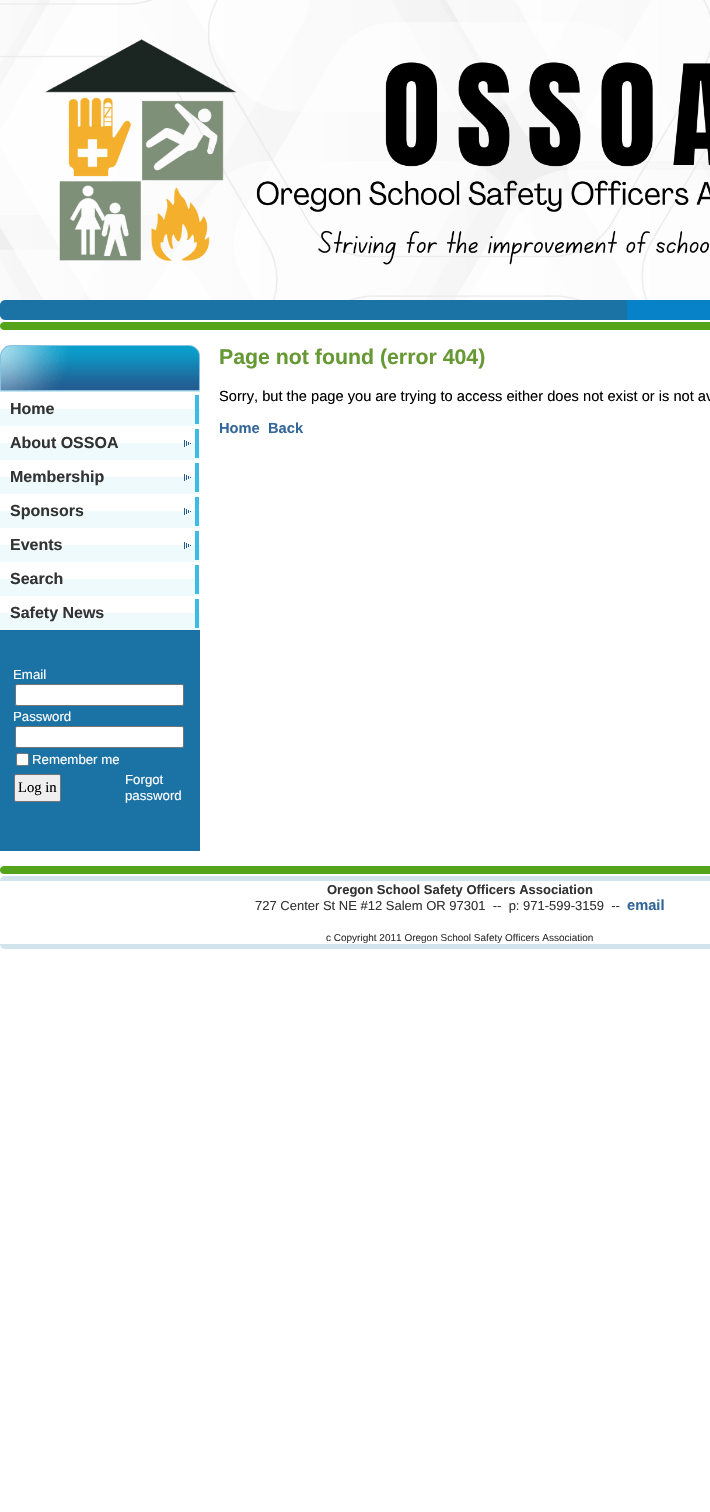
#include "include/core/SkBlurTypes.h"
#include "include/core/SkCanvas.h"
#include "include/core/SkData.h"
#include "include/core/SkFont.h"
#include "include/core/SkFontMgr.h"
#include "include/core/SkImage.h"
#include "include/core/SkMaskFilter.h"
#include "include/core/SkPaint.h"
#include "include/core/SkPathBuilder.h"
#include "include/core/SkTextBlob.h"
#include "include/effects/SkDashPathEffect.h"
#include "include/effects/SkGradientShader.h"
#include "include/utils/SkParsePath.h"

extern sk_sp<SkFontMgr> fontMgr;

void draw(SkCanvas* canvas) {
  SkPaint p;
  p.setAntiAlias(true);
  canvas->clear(SK_ColorWHITE);
  canvas->drawImageRect(SkImages::DeferredFromEncodedData(SkData::MakeFromFileName("images/1.png")), SkRect::MakeLTRB(0, 0, 710, 300), SkSamplingOptions());
  canvas->drawImageRect(SkImages::DeferredFromEncodedData(SkData::MakeFromFileName("images/2.png")), SkRect::MakeLTRB(10, 300, 710, 330), SkSamplingOptions());
  canvas->drawImageRect(SkImages::DeferredFromEncodedData(SkData::MakeFromFileName("images/3.png")), SkRect::MakeLTRB(0, 300, 10, 330), SkSamplingOptions());
  p.setColor(SkColorSetRGB(27, 114, 164));
  canvas->drawRect(SkRect::MakeLTRB(0, 630, 200, 851), p);
  canvas->drawImageRect(SkImages::DeferredFromEncodedData(SkData::MakeFromFileName("images/4.png")), SkRect::MakeLTRB(69, 345, 190, 391), SkSamplingOptions());
  canvas->drawImageRect(SkImages::DeferredFromEncodedData(SkData::MakeFromFileName("images/5.png")), SkRect::MakeLTRB(0, 345, 69, 391), SkSamplingOptions());
  canvas->drawImageRect(SkImages::DeferredFromEncodedData(SkData::MakeFromFileName("images/6.png")), SkRect::MakeLTRB(190, 345, 200, 391), SkSamplingOptions());
  p.setColor(SkColorSetRGB(239, 250, 253));
  canvas->drawRect(SkRect::MakeLTRB(0, 409, 200, 426), p);
  p.setColor(SkColorSetRGB(199, 230, 239));
  canvas->drawRect(SkRect::MakeLTRB(0, 391, 200, 392), p);
  p.setColor(SkColorSetRGB(62, 186, 231));
  canvas->drawRect(SkRect::MakeLTRB(195, 395, 199, 424), p);
  p.setColor(SkColorSetRGB(239, 250, 253));
  canvas->drawRect(SkRect::MakeLTRB(0, 443, 200, 460), p);
  p.setColor(SkColorSetRGB(62, 186, 231));
  canvas->drawRect(SkRect::MakeLTRB(195, 429, 199, 458), p);
  canvas->drawImageRect(SkImages::DeferredFromEncodedData(SkData::MakeFromFileName("images/7.png")), SkRect::MakeLTRB(184, 440, 191, 447), SkSamplingOptions());
  p.setColor(SkColorSetRGB(239, 250, 253));
  canvas->drawRect(SkRect::MakeLTRB(0, 477, 200, 494), p);
  p.setColor(SkColorSetRGB(62, 186, 231));
  canvas->drawRect(SkRect::MakeLTRB(195, 463, 199, 492), p);
  canvas->drawImageRect(SkImages::DeferredFromEncodedData(SkData::MakeFromFileName("images/7.png")), SkRect::MakeLTRB(184, 474, 191, 481), SkSamplingOptions());
  p.setColor(SkColorSetRGB(239, 250, 253));
  canvas->drawRect(SkRect::MakeLTRB(0, 511, 200, 528), p);
  p.setColor(SkColorSetRGB(62, 186, 231));
  canvas->drawRect(SkRect::MakeLTRB(195, 497, 199, 526), p);
  canvas->drawImageRect(SkImages::DeferredFromEncodedData(SkData::MakeFromFileName("images/7.png")), SkRect::MakeLTRB(184, 508, 191, 515), SkSamplingOptions());
  p.setColor(SkColorSetRGB(239, 250, 253));
  canvas->drawRect(SkRect::MakeLTRB(0, 545, 200, 562), p);
  p.setColor(SkColorSetRGB(62, 186, 231));
  canvas->drawRect(SkRect::MakeLTRB(195, 531, 199, 560), p);
  canvas->drawImageRect(SkImages::DeferredFromEncodedData(SkData::MakeFromFileName("images/7.png")), SkRect::MakeLTRB(184, 542, 191, 549), SkSamplingOptions());
  p.setColor(SkColorSetRGB(239, 250, 253));
  canvas->drawRect(SkRect::MakeLTRB(0, 579, 200, 596), p);
  p.setColor(SkColorSetRGB(62, 186, 231));
  canvas->drawRect(SkRect::MakeLTRB(195, 565, 199, 594), p);
  p.setColor(SkColorSetRGB(239, 250, 253));
  canvas->drawRect(SkRect::MakeLTRB(0, 613, 200, 630), p);
  p.setColor(SkColorSetRGB(62, 186, 231));
  canvas->drawRect(SkRect::MakeLTRB(195, 599, 199, 628), p);
  p.setColor(SK_ColorWHITE);
  canvas->drawRoundRect(SkRect::MakeLTRB(15.5f, 684.5f, 183.5f, 705.5f), 1.5f, 1.5f, p);
  p.setStyle(SkPaint::kStroke_Style);
  p.setStrokeWidth(1);
  p.setColor(SkColorSetRGB(118, 118, 118));
  canvas->drawRoundRect(SkRect::MakeLTRB(15.5f, 684.5f, 183.5f, 705.5f), 1.5f, 1.5f, p);
  p.setStyle(SkPaint::kFill_Style);
  p.setColor(SK_ColorWHITE);
  canvas->drawRoundRect(SkRect::MakeLTRB(15.5f, 726.5f, 183.5f, 747.5f), 1.5f, 1.5f, p);
  p.setStyle(SkPaint::kStroke_Style);
  p.setColor(SkColorSetRGB(118, 118, 118));
  canvas->drawRoundRect(SkRect::MakeLTRB(15.5f, 726.5f, 183.5f, 747.5f), 1.5f, 1.5f, p);
  p.setStyle(SkPaint::kFill_Style);
  p.setColor(SK_ColorWHITE);
  canvas->drawRoundRect(SkRect::MakeLTRB(16.5f, 753.5f, 28.5f, 765.5f), 1.5f, 1.5f, p);
  p.setStyle(SkPaint::kStroke_Style);
  p.setColor(SkColorSetRGB(118, 118, 118));
  canvas->drawRoundRect(SkRect::MakeLTRB(16.5f, 753.5f, 28.5f, 765.5f), 1.5f, 1.5f, p);
  p.setStyle(SkPaint::kFill_Style);
  p.setColor(SkColorSetRGB(239, 239, 239));
  canvas->drawRoundRect(SkRect::MakeLTRB(14.5f, 774.5f, 60.5f, 801.5f), 1.5f, 1.5f, p);
  p.setStyle(SkPaint::kStroke_Style);
  p.setColor(SkColorSetRGB(118, 118, 118));
  canvas->drawRoundRect(SkRect::MakeLTRB(14.5f, 774.5f, 60.5f, 801.5f), 1.5f, 1.5f, p);
  canvas->drawImageRect(SkImages::DeferredFromEncodedData(SkData::MakeFromFileName("images/8.png")), SkRect::MakeLTRB(5, 866, 710, 880), SkSamplingOptions());
  canvas->drawImageRect(SkImages::DeferredFromEncodedData(SkData::MakeFromFileName("images/9.png")), SkRect::MakeLTRB(0, 866, 5, 880), SkSamplingOptions());
  p.setStyle(SkPaint::kFill_Style);
  p.setColor(SkColorSetRGB(209, 227, 237));
  canvas->drawRect(SkRect::MakeLTRB(0, 880, 710, 949), p);
  canvas->drawImageRect(SkImages::DeferredFromEncodedData(SkData::MakeFromFileName("images/10.png")), SkRect::MakeLTRB(0, 945, 5, 949), SkSamplingOptions());
  p.setColor(SK_ColorWHITE);
  canvas->drawRect(SkRect::MakeLTRB(0, 881, 710, 944), p);
  SkFont font1(fontMgr->matchFamilyStyle("Liberation Sans", SkFontStyle::Bold()), 21.3f);
  font1.setSubpixel(true);
  p.setColor(SkColorSetRGB(102, 153, 51));
  canvas->drawString("Page not found (error 404)", 219, 364, font1, p);
  SkFont font2(fontMgr->matchFamilyStyle("Liberation Sans", SkFontStyle::Normal()), 14.65f);
  font2.setSubpixel(true);
  p.setColor(SK_ColorBLACK);
  canvas->drawString("Sorry, but the page you are trying to access either does not exist or is not av", 219, 401, font2, p);
  SkFont font3(fontMgr->matchFamilyStyle("Liberation Sans", SkFontStyle::Bold()), 14.65f);
  font3.setSubpixel(true);
  p.setColor(SkColorSetRGB(51, 102, 153));
  canvas->drawString("Home", 219, 433, font3, p);
  canvas->drawString("Back", 268, 433, font3, p);
  SkFont font4(fontMgr->matchFamilyStyle("Liberation Sans", SkFontStyle::Bold()), 16);
  font4.setSubpixel(true);
  p.setColor(SkColorSetRGB(51, 51, 51));
  canvas->drawString("Home", 10, 414, font4, p);
  canvas->drawString("About OSSOA", 10, 448, font4, p);
  canvas->drawString("Membership", 10, 482, font4, p);
  canvas->drawString("Sponsors", 10, 516, font4, p);
  canvas->drawString("Events", 10, 550, font4, p);
  canvas->drawString("Search", 10, 584, font4, p);
  canvas->drawString("Safety News", 10, 618, font4, p);
  SkFont font5(fontMgr->matchFamilyStyle("Liberation Sans", SkFontStyle::Normal()), 13.25f);
  font5.setSubpixel(true);
  p.setColor(SK_ColorWHITE);
  canvas->drawString("Email", 13, 679, font5, p);
  canvas->drawString("Password", 13, 721, font5, p);
  canvas->drawString("Remember me", 32, 764, font5, p);
  SkFont font6(fontMgr->matchFamilyStyle("Liberation Serif", SkFontStyle::Normal()), 14.65f);
  font6.setSubpixel(true);
  p.setColor(SK_ColorBLACK);
  canvas->drawString("Log in", 18, 792, font6, p);
  p.setColor(SK_ColorWHITE);
  canvas->drawString("Forgot", 125, 784, font5, p);
  canvas->drawString("password", 125, 800, font5, p);
  SkFont font7(fontMgr->matchFamilyStyle("Liberation Sans", SkFontStyle::Bold()), 13);
  font7.setSubpixel(true);
  p.setColor(SkColorSetRGB(51, 51, 51));
  canvas->drawString("Oregon School Safety Officers Association", 327, 894, font7, p);
  SkFont font8(fontMgr->matchFamilyStyle("Liberation Sans", SkFontStyle::Normal()), 13);
  font8.setSubpixel(true);
  canvas->drawString("727 Center St NE #12 Salem OR 97301  --  p: 971-599-3159  --", 255, 910, font8, p);
  p.setColor(SkColorSetRGB(51, 102, 153));
  canvas->drawString("email", 627, 910, font3, p);
  SkFont font9(fontMgr->matchFamilyStyle("Liberation Sans", SkFontStyle::Normal()), 10);
  font9.setSubpixel(true);
  p.setColor(SkColorSetRGB(51, 51, 51));
  canvas->drawString("c Copyright 2011 Oregon School Safety Officers Association", 326, 941, font9, p);
}
